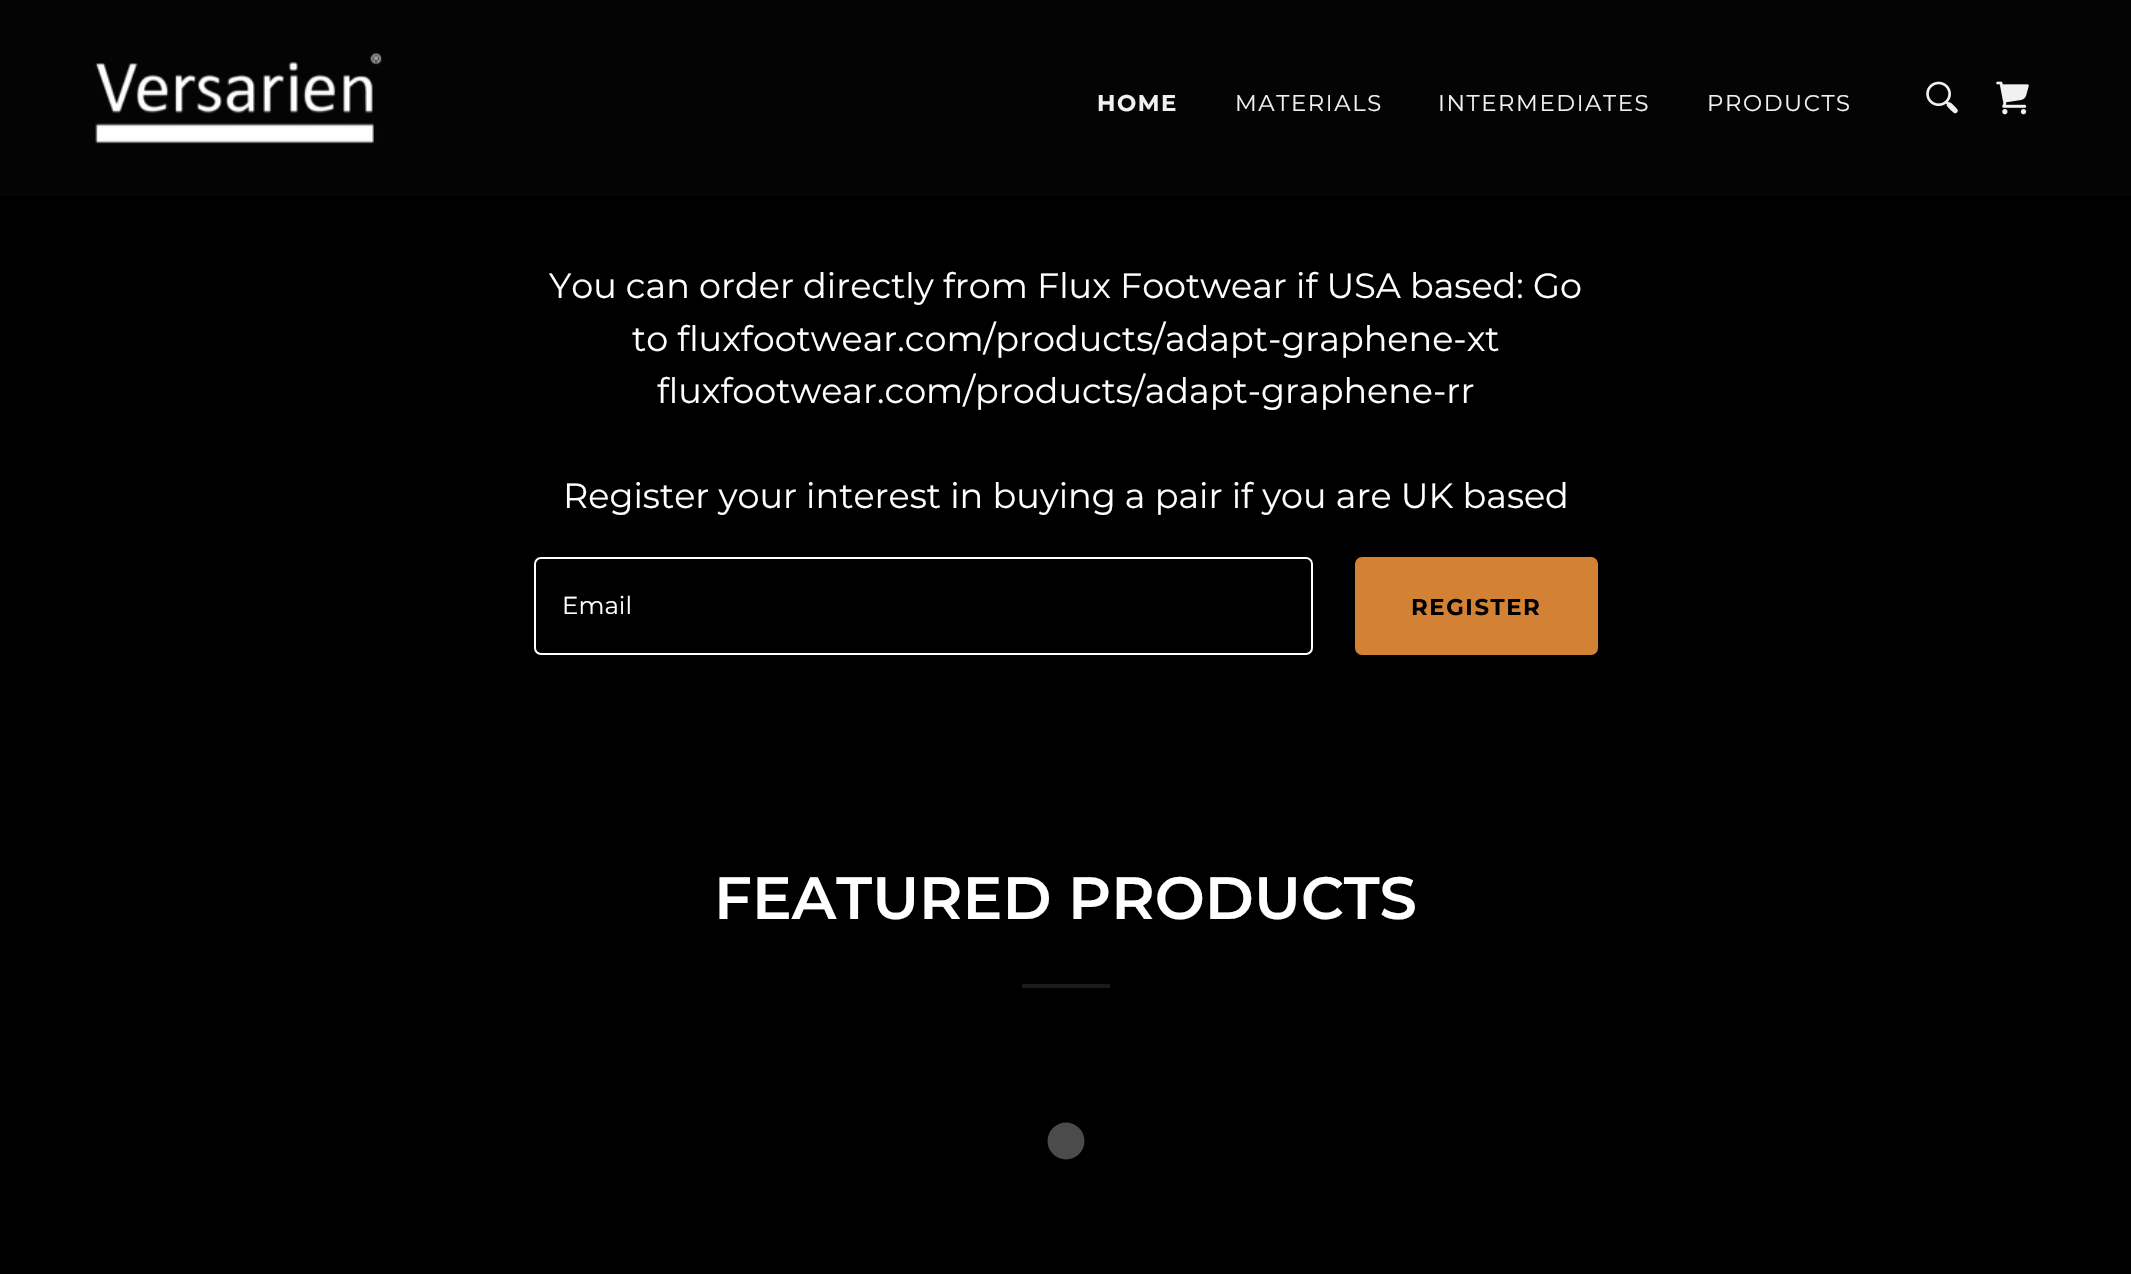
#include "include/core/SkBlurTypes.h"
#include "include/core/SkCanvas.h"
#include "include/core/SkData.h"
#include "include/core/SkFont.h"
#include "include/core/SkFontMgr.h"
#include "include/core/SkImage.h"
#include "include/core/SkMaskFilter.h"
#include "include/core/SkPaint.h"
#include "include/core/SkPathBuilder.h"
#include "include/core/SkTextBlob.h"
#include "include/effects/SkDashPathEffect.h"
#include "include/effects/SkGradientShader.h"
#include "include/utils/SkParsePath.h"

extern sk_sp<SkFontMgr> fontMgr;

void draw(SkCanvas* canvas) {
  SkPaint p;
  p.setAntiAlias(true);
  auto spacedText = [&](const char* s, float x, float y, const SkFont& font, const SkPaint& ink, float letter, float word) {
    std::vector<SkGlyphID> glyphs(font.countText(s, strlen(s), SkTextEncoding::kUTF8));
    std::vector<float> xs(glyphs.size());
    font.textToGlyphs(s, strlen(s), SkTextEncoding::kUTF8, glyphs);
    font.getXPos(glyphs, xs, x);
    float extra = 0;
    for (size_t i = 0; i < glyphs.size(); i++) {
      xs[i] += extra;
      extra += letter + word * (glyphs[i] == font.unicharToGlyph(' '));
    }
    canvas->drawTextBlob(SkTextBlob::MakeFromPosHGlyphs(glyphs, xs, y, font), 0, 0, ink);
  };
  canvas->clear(SK_ColorBLACK);
  p.setColor(SkColorSetARGB(64, 17, 17, 17));
  canvas->drawRect(SkRect::MakeLTRB(0, 0, 2131, 196), p);
  canvas->drawImageRect(SkImages::DeferredFromEncodedData(SkData::MakeFromFileName("images/1.png")), SkRect::MakeLTRB(95, 53, 382, 144), SkSamplingOptions());
  canvas->drawImageRect(SkImages::DeferredFromEncodedData(SkData::MakeFromFileName("images/2.png")), SkRect::MakeLTRB(1926, 81, 1958, 114), SkSamplingOptions());
  canvas->drawImageRect(SkImages::DeferredFromEncodedData(SkData::MakeFromFileName("images/3.png")), SkRect::MakeLTRB(1996, 81, 2029, 115), SkSamplingOptions());
  p.setStyle(SkPaint::kStroke_Style);
  p.setStrokeWidth(2);
  p.setColor(SK_ColorWHITE);
  canvas->drawRoundRect(SkRect::MakeLTRB(535, 558, 1312, 654), 6, 6, p);
  p.setStyle(SkPaint::kFill_Style);
  p.setColor(SkColorSetRGB(211, 130, 53));
  canvas->drawRoundRect(SkRect::MakeLTRB(1355, 557, 1598, 655), 7, 7, p);
  p.setColor(SkColorSetRGB(27, 27, 27));
  canvas->drawRect(SkRect::MakeLTRB(1022, 984, 1110, 988), p);
  p.setColor(SkColorSetRGB(75, 75, 75));
  canvas->drawCircle(1066, 1141, 18.5f, p);
  SkFont font1(fontMgr->matchFamilyStyle("Montserrat", SkFontStyle::Bold()), 22.75f);
  font1.setSubpixel(true);
  p.setColor(SkColorSetRGB(241, 241, 241));
  spacedText("HOME", 1097, 111, font1, p, 1.6f, 0);
  SkFont font2(fontMgr->matchFamilyStyle("Montserrat", SkFontStyle::Normal()), 22.75f);
  font2.setSubpixel(true);
  spacedText("MATERIALS", 1235, 111, font2, p, 1.6f, 0);
  spacedText("INTERMEDIATES", 1438, 111, font2, p, 1.6f, 0);
  spacedText("PRODUCTS", 1707, 111, font2, p, 1.6f, 0);
  SkFont font3(fontMgr->matchFamilyStyle("Montserrat", SkFontStyle::Normal()), 35);
  font3.setSubpixel(true);
  p.setColor(SK_ColorWHITE);
  canvas->drawString("You can order directly from Flux Footwear if USA based: Go", 549, 298, font3, p);
  canvas->drawString("to fluxfootwear.com/products/adapt-graphene-xt", 632, 351, font3, p);
  canvas->drawString("fluxfootwear.com/products/adapt-graphene-rr", 657, 403, font3, p);
  canvas->drawString("Register your interest in buying a pair if you are UK based", 563, 508, font3, p);
  SkFont font4(fontMgr->matchFamilyStyle("Montserrat", SkFontStyle::Normal()), 24.5f);
  font4.setSubpixel(true);
  canvas->drawString("Email", 562, 614, font4, p);
  p.setColor(SK_ColorBLACK);
  spacedText("REGISTER", 1411, 615, font1, p, 1.6f, 0);
  SkFont font5(fontMgr->matchFamilyStyle("Montserrat", SkFontStyle(600, SkFontStyle::kNormal_Width, SkFontStyle::kUpright_Slant)), 59.5f);
  font5.setSubpixel(true);
  p.setColor(SK_ColorWHITE);
  canvas->drawString("FEATURED PRODUCTS", 714, 919, font5, p);
}
